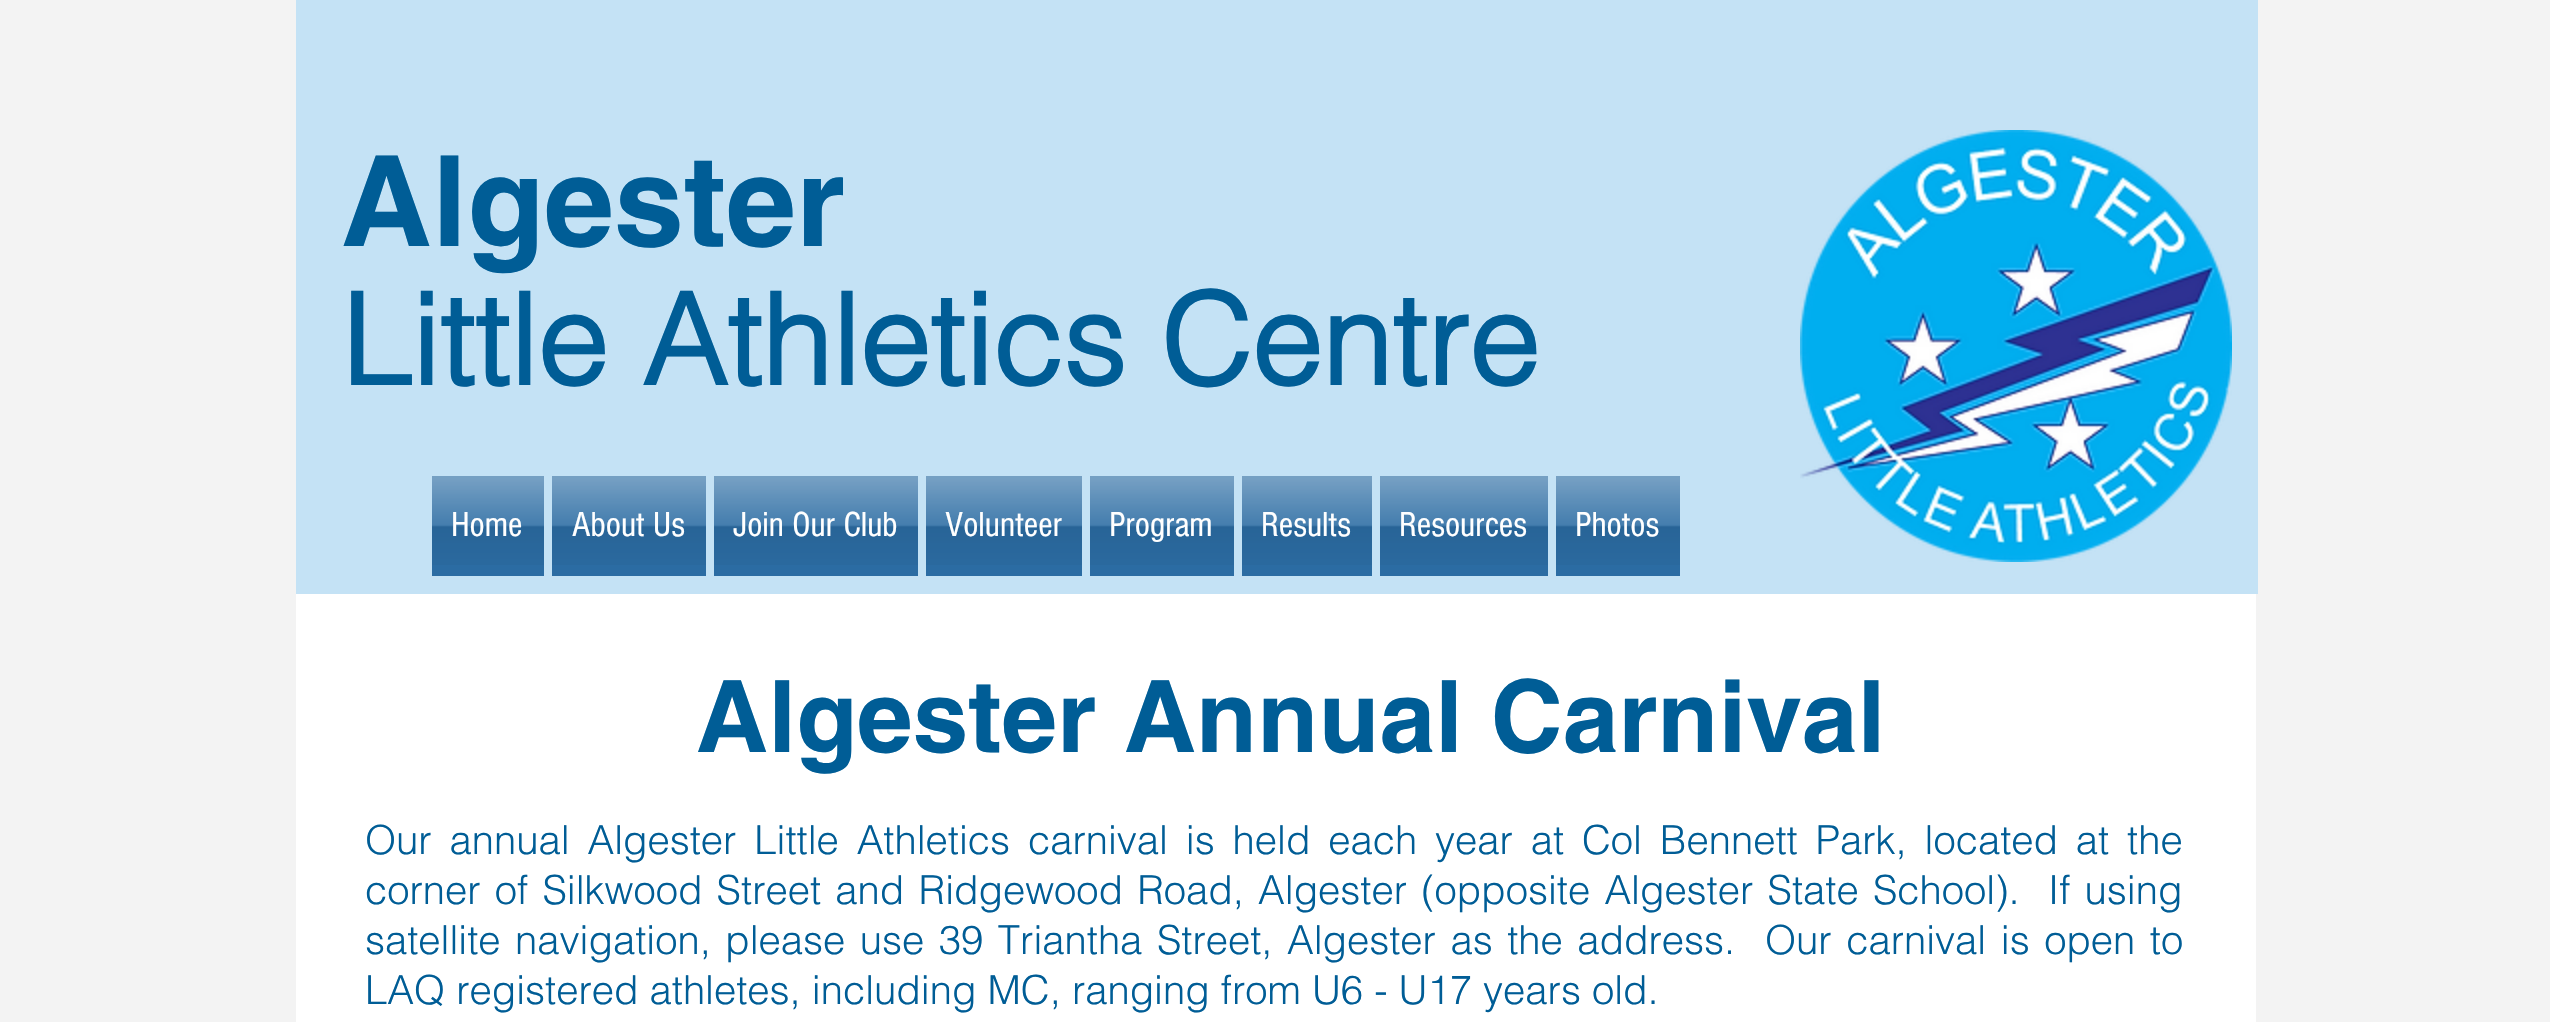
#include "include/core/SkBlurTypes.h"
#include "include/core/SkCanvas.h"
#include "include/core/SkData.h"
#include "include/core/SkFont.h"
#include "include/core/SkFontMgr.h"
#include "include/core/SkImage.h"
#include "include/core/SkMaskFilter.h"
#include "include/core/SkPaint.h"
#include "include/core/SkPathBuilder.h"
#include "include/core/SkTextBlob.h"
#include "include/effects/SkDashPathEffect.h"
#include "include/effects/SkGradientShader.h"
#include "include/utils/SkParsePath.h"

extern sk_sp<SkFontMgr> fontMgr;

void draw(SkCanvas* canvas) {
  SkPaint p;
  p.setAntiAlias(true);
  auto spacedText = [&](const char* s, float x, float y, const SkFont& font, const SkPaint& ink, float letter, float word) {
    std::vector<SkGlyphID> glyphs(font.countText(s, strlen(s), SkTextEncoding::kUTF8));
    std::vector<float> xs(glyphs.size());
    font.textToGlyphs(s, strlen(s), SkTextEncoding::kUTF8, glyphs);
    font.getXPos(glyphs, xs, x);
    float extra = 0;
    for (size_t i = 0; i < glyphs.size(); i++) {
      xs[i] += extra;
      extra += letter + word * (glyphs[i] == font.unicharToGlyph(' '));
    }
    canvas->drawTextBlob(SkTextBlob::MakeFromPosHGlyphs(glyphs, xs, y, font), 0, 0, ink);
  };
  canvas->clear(SkColorSetRGB(243, 243, 243));
  p.setColor(SkColorSetRGB(196, 226, 245));
  canvas->drawRect(SkRect::MakeLTRB(296, 0, 2258, 594), p);
  canvas->drawImageRect(SkImages::DeferredFromEncodedData(SkData::MakeFromFileName("images/1.png")), SkRect::MakeLTRB(1800, 130, 2232, 562), SkSamplingOptions());
  p.setColor(SkColorSetRGB(43, 108, 163));
  canvas->drawRect(SkRect::MakeLTRB(432, 476, 544, 576), p);
  canvas->drawImageRect(SkImages::DeferredFromEncodedData(SkData::MakeFromFileName("images/2.png")), SkRect::MakeLTRB(432, 476, 544, 565), SkSamplingOptions());
  canvas->drawRect(SkRect::MakeLTRB(552, 476, 706, 576), p);
  canvas->drawImageRect(SkImages::DeferredFromEncodedData(SkData::MakeFromFileName("images/3.png")), SkRect::MakeLTRB(552, 476, 706, 565), SkSamplingOptions());
  canvas->drawRect(SkRect::MakeLTRB(714, 476, 918, 576), p);
  canvas->drawImageRect(SkImages::DeferredFromEncodedData(SkData::MakeFromFileName("images/4.png")), SkRect::MakeLTRB(714, 476, 918, 565), SkSamplingOptions());
  canvas->drawRect(SkRect::MakeLTRB(926, 476, 1082, 576), p);
  canvas->drawImageRect(SkImages::DeferredFromEncodedData(SkData::MakeFromFileName("images/5.png")), SkRect::MakeLTRB(926, 476, 1082, 565), SkSamplingOptions());
  canvas->drawRect(SkRect::MakeLTRB(1090, 476, 1234, 576), p);
  canvas->drawImageRect(SkImages::DeferredFromEncodedData(SkData::MakeFromFileName("images/6.png")), SkRect::MakeLTRB(1090, 476, 1234, 565), SkSamplingOptions());
  canvas->drawRect(SkRect::MakeLTRB(1242, 476, 1372, 576), p);
  canvas->drawImageRect(SkImages::DeferredFromEncodedData(SkData::MakeFromFileName("images/7.png")), SkRect::MakeLTRB(1242, 476, 1372, 565), SkSamplingOptions());
  canvas->drawRect(SkRect::MakeLTRB(1380, 476, 1548, 576), p);
  canvas->drawImageRect(SkImages::DeferredFromEncodedData(SkData::MakeFromFileName("images/8.png")), SkRect::MakeLTRB(1380, 476, 1548, 565), SkSamplingOptions());
  canvas->drawRect(SkRect::MakeLTRB(1556, 476, 1680, 576), p);
  canvas->drawImageRect(SkImages::DeferredFromEncodedData(SkData::MakeFromFileName("images/9.png")), SkRect::MakeLTRB(1556, 476, 1680, 565), SkSamplingOptions());
  p.setColor(SK_ColorWHITE);
  canvas->drawRect(SkRect::MakeLTRB(296, 594, 2256, 1022), p);
  SkFont font1(fontMgr->matchFamilyStyle("helvetica", SkFontStyle::Bold()), 126);
  font1.setSubpixel(true);
  p.setColor(SkColorSetRGB(0, 93, 150));
  canvas->drawString("Algester", 341, 246, font1, p);
  SkFont font2(fontMgr->matchFamilyStyle("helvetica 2", SkFontStyle::Bold()), 126);
  font2.setSubpixel(true);
  canvas->drawString("Little Athletics Centre", 341, 385, font2, p);
  SkFont font3(fontMgr->matchFamilyStyle("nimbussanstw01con", SkFontStyle::Normal()), 36);
  font3.setSubpixel(true);
  p.setColor(SK_ColorWHITE);
  canvas->drawString("Home", 451, 536, font3, p);
  canvas->drawString("About Us", 572, 536, font3, p);
  canvas->drawString("Join Our Club", 733, 536, font3, p);
  canvas->drawString("Volunteer", 945, 536, font3, p);
  canvas->drawString("Program", 1109, 536, font3, p);
  canvas->drawString("Results", 1261, 536, font3, p);
  canvas->drawString("Resources", 1399, 536, font3, p);
  canvas->drawString("Photos", 1575, 536, font3, p);
  SkFont font4(fontMgr->matchFamilyStyle("helvetica", SkFontStyle::Bold()), 100);
  font4.setSubpixel(true);
  p.setColor(SkColorSetRGB(0, 93, 150));
  canvas->drawString("Algester Annual Carnival", 696, 752, font4, p);
  SkFont font5(fontMgr->matchFamilyStyle("helvetica", SkFontStyle(300, SkFontStyle::kNormal_Width, SkFontStyle::kUpright_Slant)), 40);
  font5.setSubpixel(true);
  spacedText("Our annual Algester Little Athletics carnival is held each year at Col Bennett Park, located at the", 365, 854, font5, p, 0, 6.75f);
  spacedText("corner of Silkwood Street and Ridgewood Road, Algester (opposite Algester State School).  If using", 365, 904, font5, p, 0, 3.1f);
  spacedText("satellite navigation, please use 39 Triantha Street, Algester as the address.", 365, 954, font5, p, 0, 3.4f);
  spacedText("Our carnival is open to", 1765, 954, font5, p, 0, 3.4f);
  canvas->drawString("LAQ registered athletes, including MC, ranging from U6 - U17 years old.", 365, 1004, font5, p);
}
